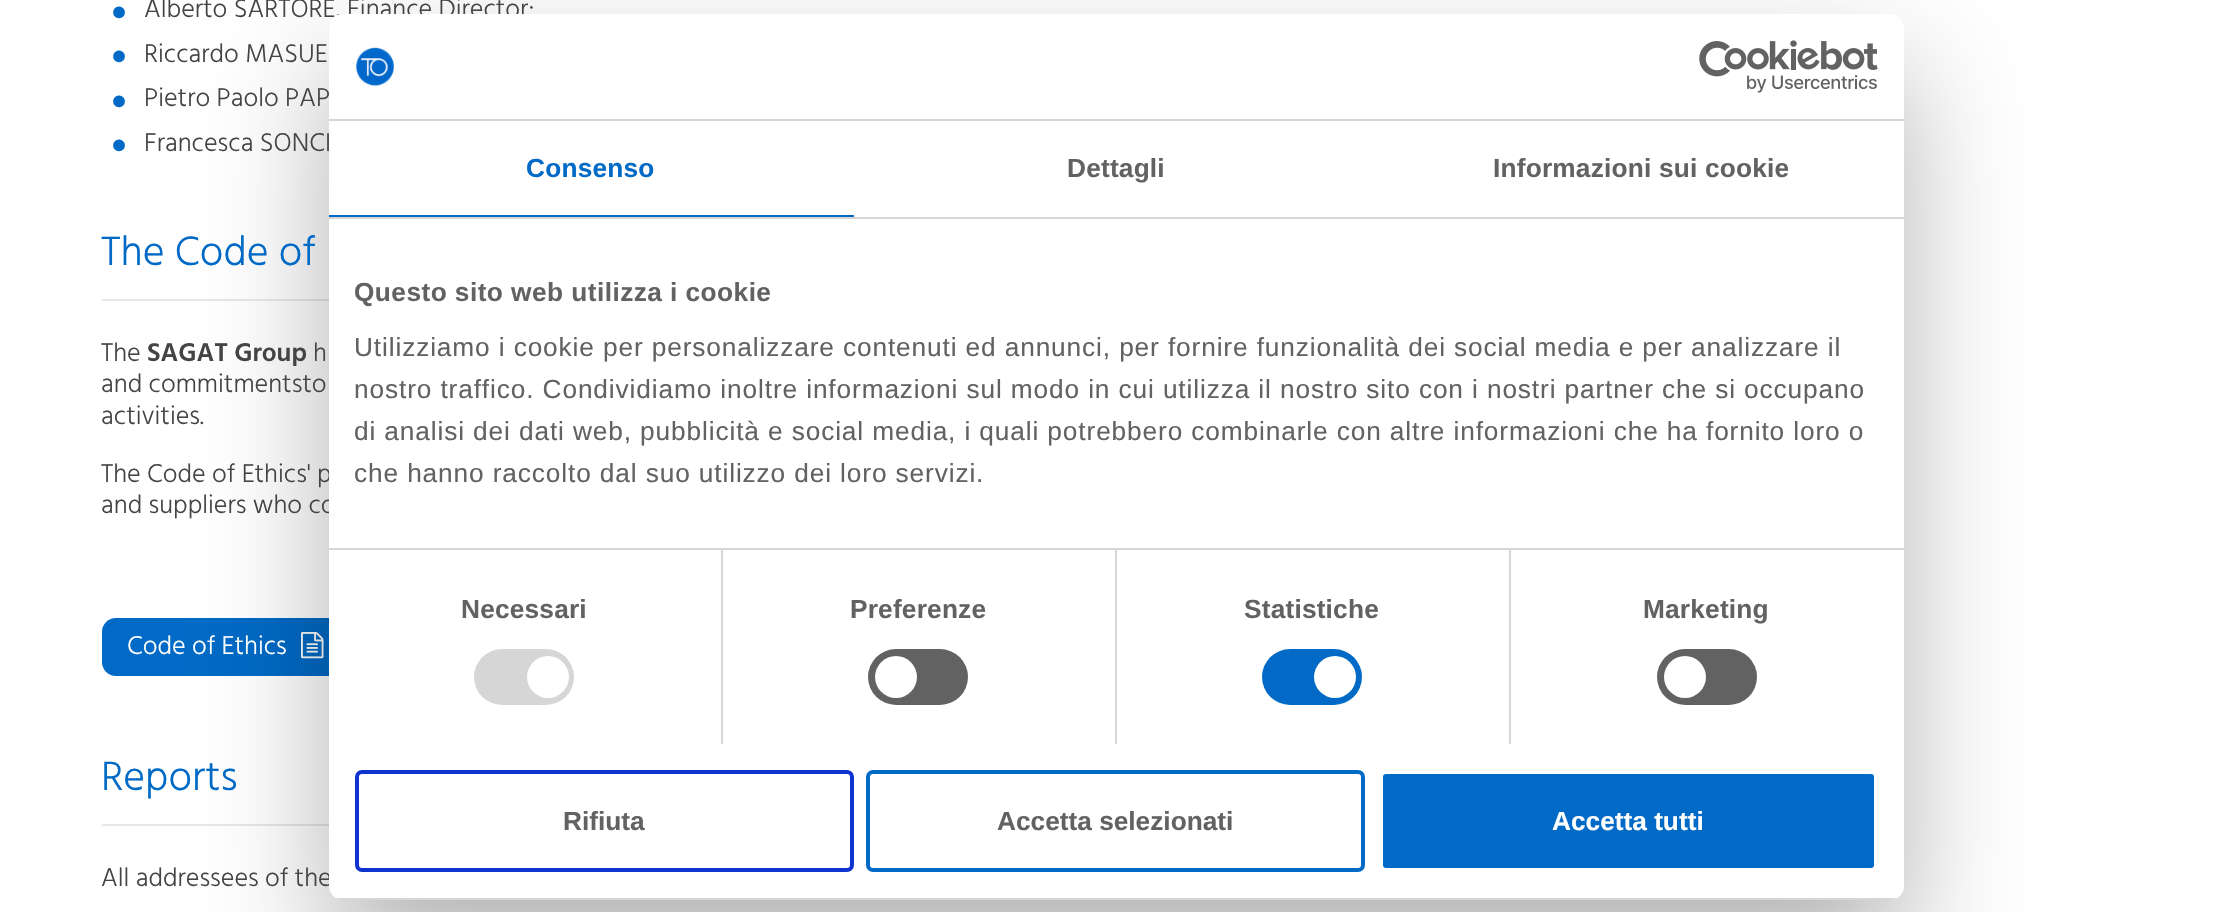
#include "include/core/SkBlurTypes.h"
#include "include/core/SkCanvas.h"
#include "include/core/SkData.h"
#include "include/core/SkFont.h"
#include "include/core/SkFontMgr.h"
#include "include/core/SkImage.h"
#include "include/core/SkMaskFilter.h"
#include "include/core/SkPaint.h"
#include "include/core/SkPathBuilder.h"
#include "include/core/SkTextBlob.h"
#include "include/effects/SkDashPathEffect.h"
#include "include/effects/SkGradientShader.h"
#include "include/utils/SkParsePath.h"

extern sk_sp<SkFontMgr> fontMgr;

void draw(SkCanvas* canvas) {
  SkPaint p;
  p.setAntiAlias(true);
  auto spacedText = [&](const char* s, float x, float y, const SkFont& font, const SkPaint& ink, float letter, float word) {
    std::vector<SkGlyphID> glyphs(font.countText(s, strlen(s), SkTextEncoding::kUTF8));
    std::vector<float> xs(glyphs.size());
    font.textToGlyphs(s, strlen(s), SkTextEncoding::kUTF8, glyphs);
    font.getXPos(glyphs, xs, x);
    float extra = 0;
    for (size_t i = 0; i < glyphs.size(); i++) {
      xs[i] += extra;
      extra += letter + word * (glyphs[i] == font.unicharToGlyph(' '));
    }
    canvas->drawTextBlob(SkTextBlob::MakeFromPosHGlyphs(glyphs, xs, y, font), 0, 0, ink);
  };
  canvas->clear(SK_ColorWHITE);
  p.setColor(SkColorSetRGB(231, 231, 231));
  canvas->drawRect(SkRect::MakeLTRB(102, 299, 329, 301), p);
  p.setColor(SkColorSetRGB(0, 106, 198));
  canvas->drawRoundRect(SkRect::MakeLTRB(102, 618, 350, 676), 14, 14, p);
  canvas->drawImageRect(SkImages::DeferredFromEncodedData(SkData::MakeFromFileName("images/1.png")), SkRect::MakeLTRB(301, 632, 324, 659), SkSamplingOptions());
  p.setColor(SkColorSetRGB(231, 231, 231));
  canvas->drawRect(SkRect::MakeLTRB(102, 824, 329, 826), p);
  p.setColor(SkColorSetARGB(77, 0, 0, 0));
  p.setMaskFilter(SkMaskFilter::MakeBlur(kNormal_SkBlurStyle, 59.5f));
  canvas->drawRoundRect(SkRect::MakeLTRB(329, 70, 1904, 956), 14, 14, p);
  p.setMaskFilter(nullptr);
  SkFont font1(fontMgr->matchFamilyStyle("Hind", SkFontStyle(300, SkFontStyle::kNormal_Width, SkFontStyle::kUpright_Slant)), 44);
  font1.setSubpixel(true);
  p.setColor(SkColorSetRGB(0, 106, 198));
  canvas->drawString("•", 109, 28, font1, p);
  SkFont font2(fontMgr->matchFamilyStyle("Hind", SkFontStyle(300, SkFontStyle::kNormal_Width, SkFontStyle::kUpright_Slant)), 26.25f);
  font2.setSubpixel(true);
  p.setColor(SkColorSetRGB(68, 68, 68));
  canvas->drawString("Alberto SARTORE, Finance Director;", 144, 17, font2, p);
  p.setColor(SkColorSetRGB(0, 106, 198));
  canvas->drawString("•", 109, 72, font1, p);
  p.setColor(SkColorSetRGB(68, 68, 68));
  canvas->drawString("Riccardo MASUE", 144, 62, font2, p);
  p.setColor(SkColorSetRGB(0, 106, 198));
  canvas->drawString("•", 109, 117, font1, p);
  p.setColor(SkColorSetRGB(68, 68, 68));
  canvas->drawString("Pietro Paolo PAP", 144, 106, font2, p);
  p.setColor(SkColorSetRGB(0, 106, 198));
  canvas->drawString("•", 109, 161, font1, p);
  p.setColor(SkColorSetRGB(68, 68, 68));
  canvas->drawString("Francesca SONCI", 144, 151, font2, p);
  SkFont font3(fontMgr->matchFamilyStyle("Hind", SkFontStyle(300, SkFontStyle::kNormal_Width, SkFontStyle::kUpright_Slant)), 42);
  font3.setSubpixel(true);
  p.setColor(SkColorSetRGB(0, 106, 198));
  canvas->drawString("The Code of", 101, 265, font3, p);
  p.setColor(SkColorSetRGB(68, 68, 68));
  canvas->drawString("The", 101, 361, font2, p);
  SkFont font4(fontMgr->matchFamilyStyle("Hind", SkFontStyle(600, SkFontStyle::kNormal_Width, SkFontStyle::kUpright_Slant)), 26.25f);
  font4.setSubpixel(true);
  canvas->drawString("SAGAT Group", 147, 361, font4, p);
  canvas->drawString("h", 313, 361, font2, p);
  canvas->drawString("and commitmentsto", 101, 392, font2, p);
  canvas->drawString("activities.", 101, 424, font2, p);
  canvas->drawString("The Code of Ethics' p", 101, 482, font2, p);
  canvas->drawString("and suppliers who co", 101, 513, font2, p);
  p.setColor(SK_ColorWHITE);
  canvas->drawString("Code of Ethics", 127, 654, font2, p);
  p.setColor(SkColorSetRGB(0, 106, 198));
  canvas->drawString("Reports", 101, 790, font3, p);
  p.setColor(SkColorSetRGB(68, 68, 68));
  canvas->drawString("All addressees of the", 101, 886, font2, p);
  p.setColor(SK_ColorWHITE);
  canvas->drawRoundRect(SkRect::MakeLTRB(329, 14, 1904, 900), 14, 14, p);
  p.setColor(SkColorSetRGB(214, 214, 214));
  canvas->drawRect(SkRect::MakeLTRB(329, 119, 1904, 121), p);
  canvas->drawImageRect(SkImages::DeferredFromEncodedData(SkData::MakeFromFileName("images/2.png")), SkRect::MakeLTRB(356, 47, 394, 87), SkSamplingOptions());
  canvas->drawImageRect(SkImages::DeferredFromEncodedData(SkData::MakeFromFileName("images/3.png")), SkRect::MakeLTRB(1699, 40, 1878, 93), SkSamplingOptions());
  canvas->drawRect(SkRect::MakeLTRB(329, 217, 1904, 219), p);
  p.setColor(SkColorSetRGB(0, 106, 198));
  canvas->drawRect(SkRect::MakeLTRB(329, 215, 854, 217), p);
  SkFont font5(fontMgr->matchFamilyStyle("Liberation Sans", SkFontStyle::Bold()), 26.25f);
  font5.setSubpixel(true);
  spacedText("Consenso", 526, 177, font5, p, 0.2f, 0);
  p.setColor(SkColorSetRGB(98, 98, 98));
  spacedText("Dettagli", 1067, 177, font5, p, 0.2f, 0);
  spacedText("Informazioni sui cookie", 1493, 177, font5, p, 0.2f, 0);
  p.setColor(SkColorSetRGB(214, 214, 214));
  canvas->drawRect(SkRect::MakeLTRB(329, 548, 1904, 550), p);
  p.setColor(SkColorSetRGB(98, 98, 98));
  spacedText("Questo sito web utilizza i cookie", 354, 301, font5, p, 0.45f, 0);
  SkFont font6(fontMgr->matchFamilyStyle("Liberation Sans", SkFontStyle::Normal()), 26.25f);
  font6.setSubpixel(true);
  spacedText("Utilizziamo i cookie per personalizzare contenuti ed annunci, per fornire funzionalità dei social media e per analizzare il", 354, 356, font6, p, 0.88f, 0);
  spacedText("nostro traffico. Condividiamo inoltre informazioni sul modo in cui utilizza il nostro sito con i nostri partner che si occupano", 354, 398, font6, p, 0.88f, 0);
  spacedText("di analisi dei dati web, pubblicità e social media, i quali potrebbero combinarle con altre informazioni che ha fornito loro o", 354, 440, font6, p, 0.88f, 0);
  spacedText("che hanno raccolto dal suo utilizzo dei loro servizi.", 354, 482, font6, p, 0.88f, 0);
  p.setColor(SkColorSetRGB(214, 214, 214));
  canvas->drawRect(SkRect::MakeLTRB(721, 550, 723, 744), p);
  p.setColor(SkColorSetRGB(98, 98, 98));
  spacedText("Necessari", 461, 618, font5, p, 0.2f, 0);
  p.setColor(SkColorSetRGB(214, 214, 214));
  canvas->drawRoundRect(SkRect::MakeLTRB(474, 649, 574, 705), 28, 28, p);
  p.setColor(SK_ColorWHITE);
  canvas->drawCircle(548, 677, 21, p);
  p.setColor(SkColorSetRGB(214, 214, 214));
  canvas->drawRect(SkRect::MakeLTRB(1115, 550, 1117, 744), p);
  p.setColor(SkColorSetRGB(98, 98, 98));
  spacedText("Preferenze", 850, 618, font5, p, 0.2f, 0);
  canvas->drawRoundRect(SkRect::MakeLTRB(868, 649, 968, 705), 28, 28, p);
  p.setColor(SK_ColorWHITE);
  canvas->drawCircle(896, 677, 21, p);
  p.setColor(SkColorSetRGB(214, 214, 214));
  canvas->drawRect(SkRect::MakeLTRB(1509, 550, 1511, 744), p);
  p.setColor(SkColorSetRGB(98, 98, 98));
  spacedText("Statistiche", 1244, 618, font5, p, 0.2f, 0);
  p.setColor(SkColorSetRGB(0, 106, 198));
  canvas->drawRoundRect(SkRect::MakeLTRB(1262, 649, 1362, 705), 28, 28, p);
  p.setColor(SK_ColorWHITE);
  canvas->drawCircle(1335, 677, 21, p);
  p.setColor(SkColorSetRGB(98, 98, 98));
  spacedText("Marketing", 1643, 618, font5, p, 0.2f, 0);
  canvas->drawRoundRect(SkRect::MakeLTRB(1657, 649, 1757, 705), 28, 28, p);
  p.setColor(SK_ColorWHITE);
  canvas->drawCircle(1685, 677, 21, p);
  canvas->save();
  canvas->clipPath(SkPathBuilder().moveTo(343, 14).lineTo(1890, 14).cubicTo(1897.5f, 14, 1904, 20.5f, 1904, 28).lineTo(1904, 886).cubicTo(1904, 893.5f, 1897.5f, 900, 1890, 900).lineTo(343, 900).cubicTo(335.5f, 900, 329, 893.5f, 329, 886).lineTo(329, 28).cubicTo(329, 20.5f, 335.5f, 14, 343, 14).close().detach(), true);
  p.setColor(SkColorSetRGB(214, 214, 214));
  canvas->drawRect(SkRect::MakeLTRB(329, 898, 1904, 900), p);
  canvas->restore();
  p.setStyle(SkPaint::kStroke_Style);
  p.setStrokeWidth(4);
  p.setColor(SkColorSetRGB(16, 50, 207));
  canvas->drawRoundRect(SkRect::MakeLTRB(357, 772, 852, 870), 5, 5, p);
  p.setStyle(SkPaint::kFill_Style);
  p.setColor(SkColorSetRGB(98, 98, 98));
  canvas->drawString("Rifiuta", 563, 830, font5, p);
  p.setStyle(SkPaint::kStroke_Style);
  p.setColor(SkColorSetRGB(0, 106, 198));
  canvas->drawRoundRect(SkRect::MakeLTRB(868, 772, 1363, 870), 5, 5, p);
  p.setStyle(SkPaint::kFill_Style);
  p.setColor(SkColorSetRGB(98, 98, 98));
  canvas->drawString("Accetta selezionati", 997, 830, font5, p);
  p.setColor(SkColorSetRGB(0, 106, 198));
  canvas->drawRoundRect(SkRect::MakeLTRB(1381, 772, 1876, 870), 5, 5, p);
  p.setStyle(SkPaint::kStroke_Style);
  p.setColor(SK_ColorWHITE);
  canvas->drawRoundRect(SkRect::MakeLTRB(1381, 772, 1876, 870), 5, 5, p);
  p.setStyle(SkPaint::kFill_Style);
  canvas->drawString("Accetta tutti", 1552, 830, font5, p);
}
